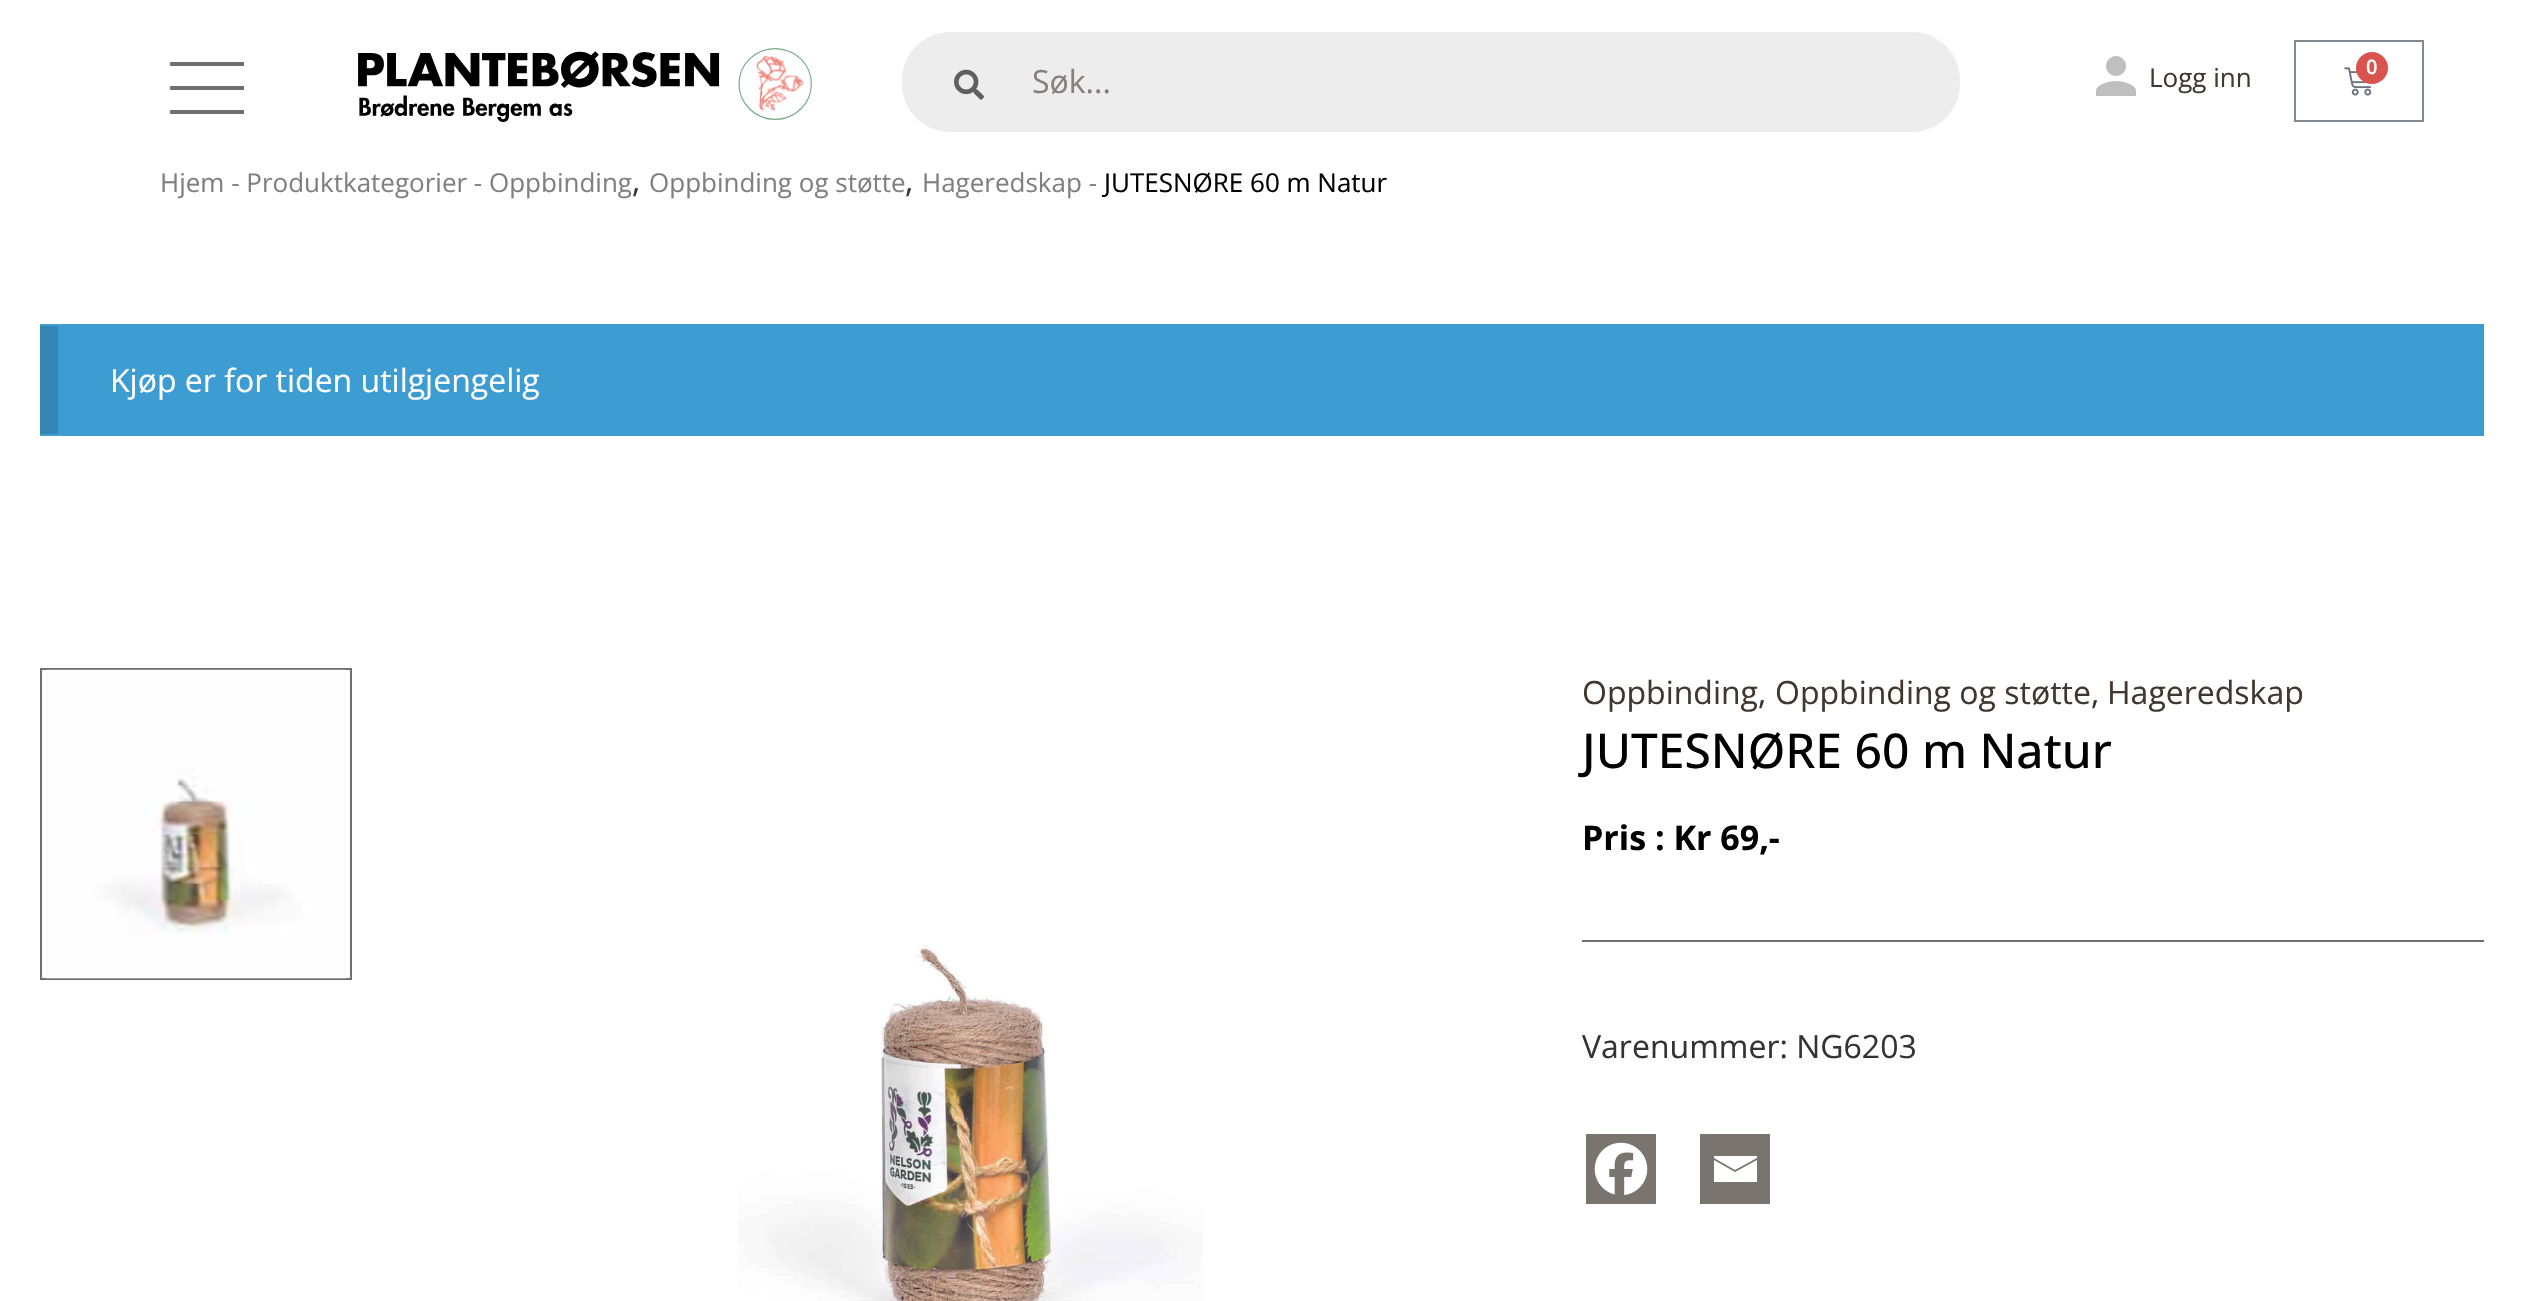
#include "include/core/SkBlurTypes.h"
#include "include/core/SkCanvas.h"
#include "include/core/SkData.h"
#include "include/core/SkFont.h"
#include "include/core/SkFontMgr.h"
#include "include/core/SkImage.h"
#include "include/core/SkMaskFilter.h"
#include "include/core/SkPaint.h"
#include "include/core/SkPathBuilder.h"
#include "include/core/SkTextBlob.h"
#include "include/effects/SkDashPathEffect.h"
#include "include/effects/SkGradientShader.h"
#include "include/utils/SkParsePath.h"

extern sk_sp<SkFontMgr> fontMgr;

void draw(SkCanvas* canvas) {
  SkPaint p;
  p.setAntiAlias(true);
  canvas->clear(SK_ColorWHITE);
  p.setColor(SkColorSetRGB(112, 112, 112));
  canvas->drawRect(SkRect::MakeLTRB(170, 62, 244, 66), p);
  canvas->drawRect(SkRect::MakeLTRB(170, 86, 244, 90), p);
  canvas->drawRect(SkRect::MakeLTRB(170, 110, 244, 114), p);
  canvas->drawImageRect(SkImages::DeferredFromEncodedData(SkData::MakeFromFileName("images/1.png")), SkRect::MakeLTRB(358, 48, 812, 122), SkSamplingOptions());
  p.setColor(SkColorSetRGB(237, 237, 237));
  canvas->drawRoundRect(SkRect::MakeLTRB(902, 32, 1960, 132), 48, 48, p);
  canvas->drawImageRect(SkImages::DeferredFromEncodedData(SkData::MakeFromFileName("images/2.png")), SkRect::MakeLTRB(954, 69, 984, 100), SkSamplingOptions());
  canvas->drawImageRect(SkImages::DeferredFromEncodedData(SkData::MakeFromFileName("images/3.png")), SkRect::MakeLTRB(2096, 56, 2136, 96), SkSamplingOptions());
  p.setStyle(SkPaint::kStroke_Style);
  p.setStrokeWidth(2);
  p.setColor(SkColorSetRGB(129, 138, 145));
  canvas->drawRect(SkRect::MakeLTRB(2295, 41, 2423, 121), p);
  canvas->drawImageRect(SkImages::DeferredFromEncodedData(SkData::MakeFromFileName("images/4.png")), SkRect::MakeLTRB(2344, 67, 2372, 96), SkSamplingOptions());
  p.setStyle(SkPaint::kFill_Style);
  p.setColor(SkColorSetRGB(217, 83, 79));
  canvas->drawCircle(2372, 68, 16, p);
  p.setColor(SkColorSetRGB(61, 156, 210));
  canvas->drawRect(SkRect::MakeLTRB(40, 324, 2484, 436), p);
  p.setColor(SkColorSetRGB(52, 133, 179));
  canvas->drawRect(SkRect::MakeLTRB(40, 326, 58, 434), p);
  p.setStyle(SkPaint::kStroke_Style);
  p.setColor(SkColorSetRGB(112, 112, 112));
  canvas->drawRect(SkRect::MakeLTRB(41, 669, 351, 979), p);
  canvas->drawImageRect(SkImages::DeferredFromEncodedData(SkData::MakeFromFileName("images/5.png")), SkRect::MakeLTRB(45, 669, 347, 979), SkSamplingOptions());
  canvas->drawImageRect(SkImages::DeferredFromEncodedData(SkData::MakeFromFileName("images/6.png")), SkRect::MakeLTRB(738, 945, 1203, 1301), SkSamplingOptions());
  p.setStyle(SkPaint::kFill_Style);
  canvas->drawRect(SkRect::MakeLTRB(1582, 940, 2484, 942), p);
  p.setColor(SkColorSetRGB(121, 116, 109));
  canvas->drawRect(SkRect::MakeLTRB(1586, 1134, 1656, 1204), p);
  canvas->drawImageRect(SkImages::DeferredFromEncodedData(SkData::MakeFromFileName("images/7.png")), SkRect::MakeLTRB(1594, 1142, 1648, 1195), SkSamplingOptions());
  canvas->drawRect(SkRect::MakeLTRB(1700, 1134, 1770, 1204), p);
  p.setColor(SK_ColorWHITE);
  canvas->drawPath(SkPathBuilder().moveTo(1712, 1156).lineTo(1757, 1156).lineTo(1757, 1158).lineTo(1735, 1170).lineTo(1714, 1158).lineTo(1714, 1156).moveTo(1714, 1160).lineTo(1735, 1172).lineTo(1757, 1160).lineTo(1757, 1182).lineTo(1714, 1182).lineTo(1714, 1160).detach(), p);
  SkFont font1(fontMgr->matchFamilyStyle("Open Sans", SkFontStyle::Normal()), 32);
  font1.setSubpixel(true);
  p.setColor(SkColorSetRGB(133, 128, 122));
  canvas->drawString("Søk...", 1032, 93, font1, p);
  SkFont font2(fontMgr->matchFamilyStyle("Open Sans", SkFontStyle::Normal()), 26);
  font2.setSubpixel(true);
  p.setColor(SkColorSetRGB(64, 56, 46));
  canvas->drawString("Logg inn", 2149, 87, font2, p);
  SkFont font3(fontMgr->matchFamilyStyle("Open Sans", SkFontStyle(600, SkFontStyle::kNormal_Width, SkFontStyle::kUpright_Slant)), 20);
  font3.setSubpixel(true);
  p.setColor(SK_ColorWHITE);
  canvas->drawString("0", 2366, 74, font3, p);
  p.setColor(SkColorSetRGB(128, 128, 128));
  canvas->drawString("Hjem - Produktkategorier - Oppbinding", 160, 192, font2, p);
  p.setColor(SkColorSetRGB(51, 51, 51));
  canvas->drawString(",", 632, 192, font1, p);
  p.setColor(SkColorSetRGB(128, 128, 128));
  canvas->drawString("Oppbinding og støtte", 649, 192, font2, p);
  p.setColor(SkColorSetRGB(51, 51, 51));
  canvas->drawString(",", 905, 192, font1, p);
  p.setColor(SkColorSetRGB(128, 128, 128));
  canvas->drawString("Hageredskap -", 922, 192, font2, p);
  p.setColor(SK_ColorBLACK);
  canvas->drawString("JUTESNØRE 60 m Natur", 1104, 192, font2, p);
  p.setColor(SK_ColorWHITE);
  canvas->drawString("Kjøp er for tiden utilgjengelig", 110, 392, font1, p);
  SkFont font4(fontMgr->matchFamilyStyle("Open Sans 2", SkFontStyle::Normal()), 32);
  font4.setSubpixel(true);
  p.setColor(SkColorSetRGB(64, 56, 46));
  canvas->drawString("Oppbinding", 1582, 704, font4, p);
  p.setColor(SkColorSetRGB(51, 51, 51));
  canvas->drawString(",", 1758, 704, font4, p);
  p.setColor(SkColorSetRGB(64, 56, 46));
  canvas->drawString("Oppbinding og støtte", 1775, 704, font4, p);
  p.setColor(SkColorSetRGB(51, 51, 51));
  canvas->drawString(",", 2091, 704, font4, p);
  p.setColor(SkColorSetRGB(64, 56, 46));
  canvas->drawString("Hageredskap", 2107, 704, font4, p);
  SkFont font5(fontMgr->matchFamilyStyle("Open Sans", SkFontStyle(500, SkFontStyle::kNormal_Width, SkFontStyle::kUpright_Slant)), 48);
  font5.setSubpixel(true);
  p.setColor(SK_ColorBLACK);
  canvas->drawString("JUTESNØRE 60 m Natur", 1582, 768, font5, p);
  SkFont font6(fontMgr->matchFamilyStyle("Open Sans", SkFontStyle::Bold()), 34);
  font6.setSubpixel(true);
  canvas->drawString("Pris : Kr 69,-", 1582, 850, font6, p);
  p.setColor(SkColorSetRGB(51, 51, 51));
  canvas->drawString("Varenummer: NG6203", 1582, 1058, font4, p);
}
